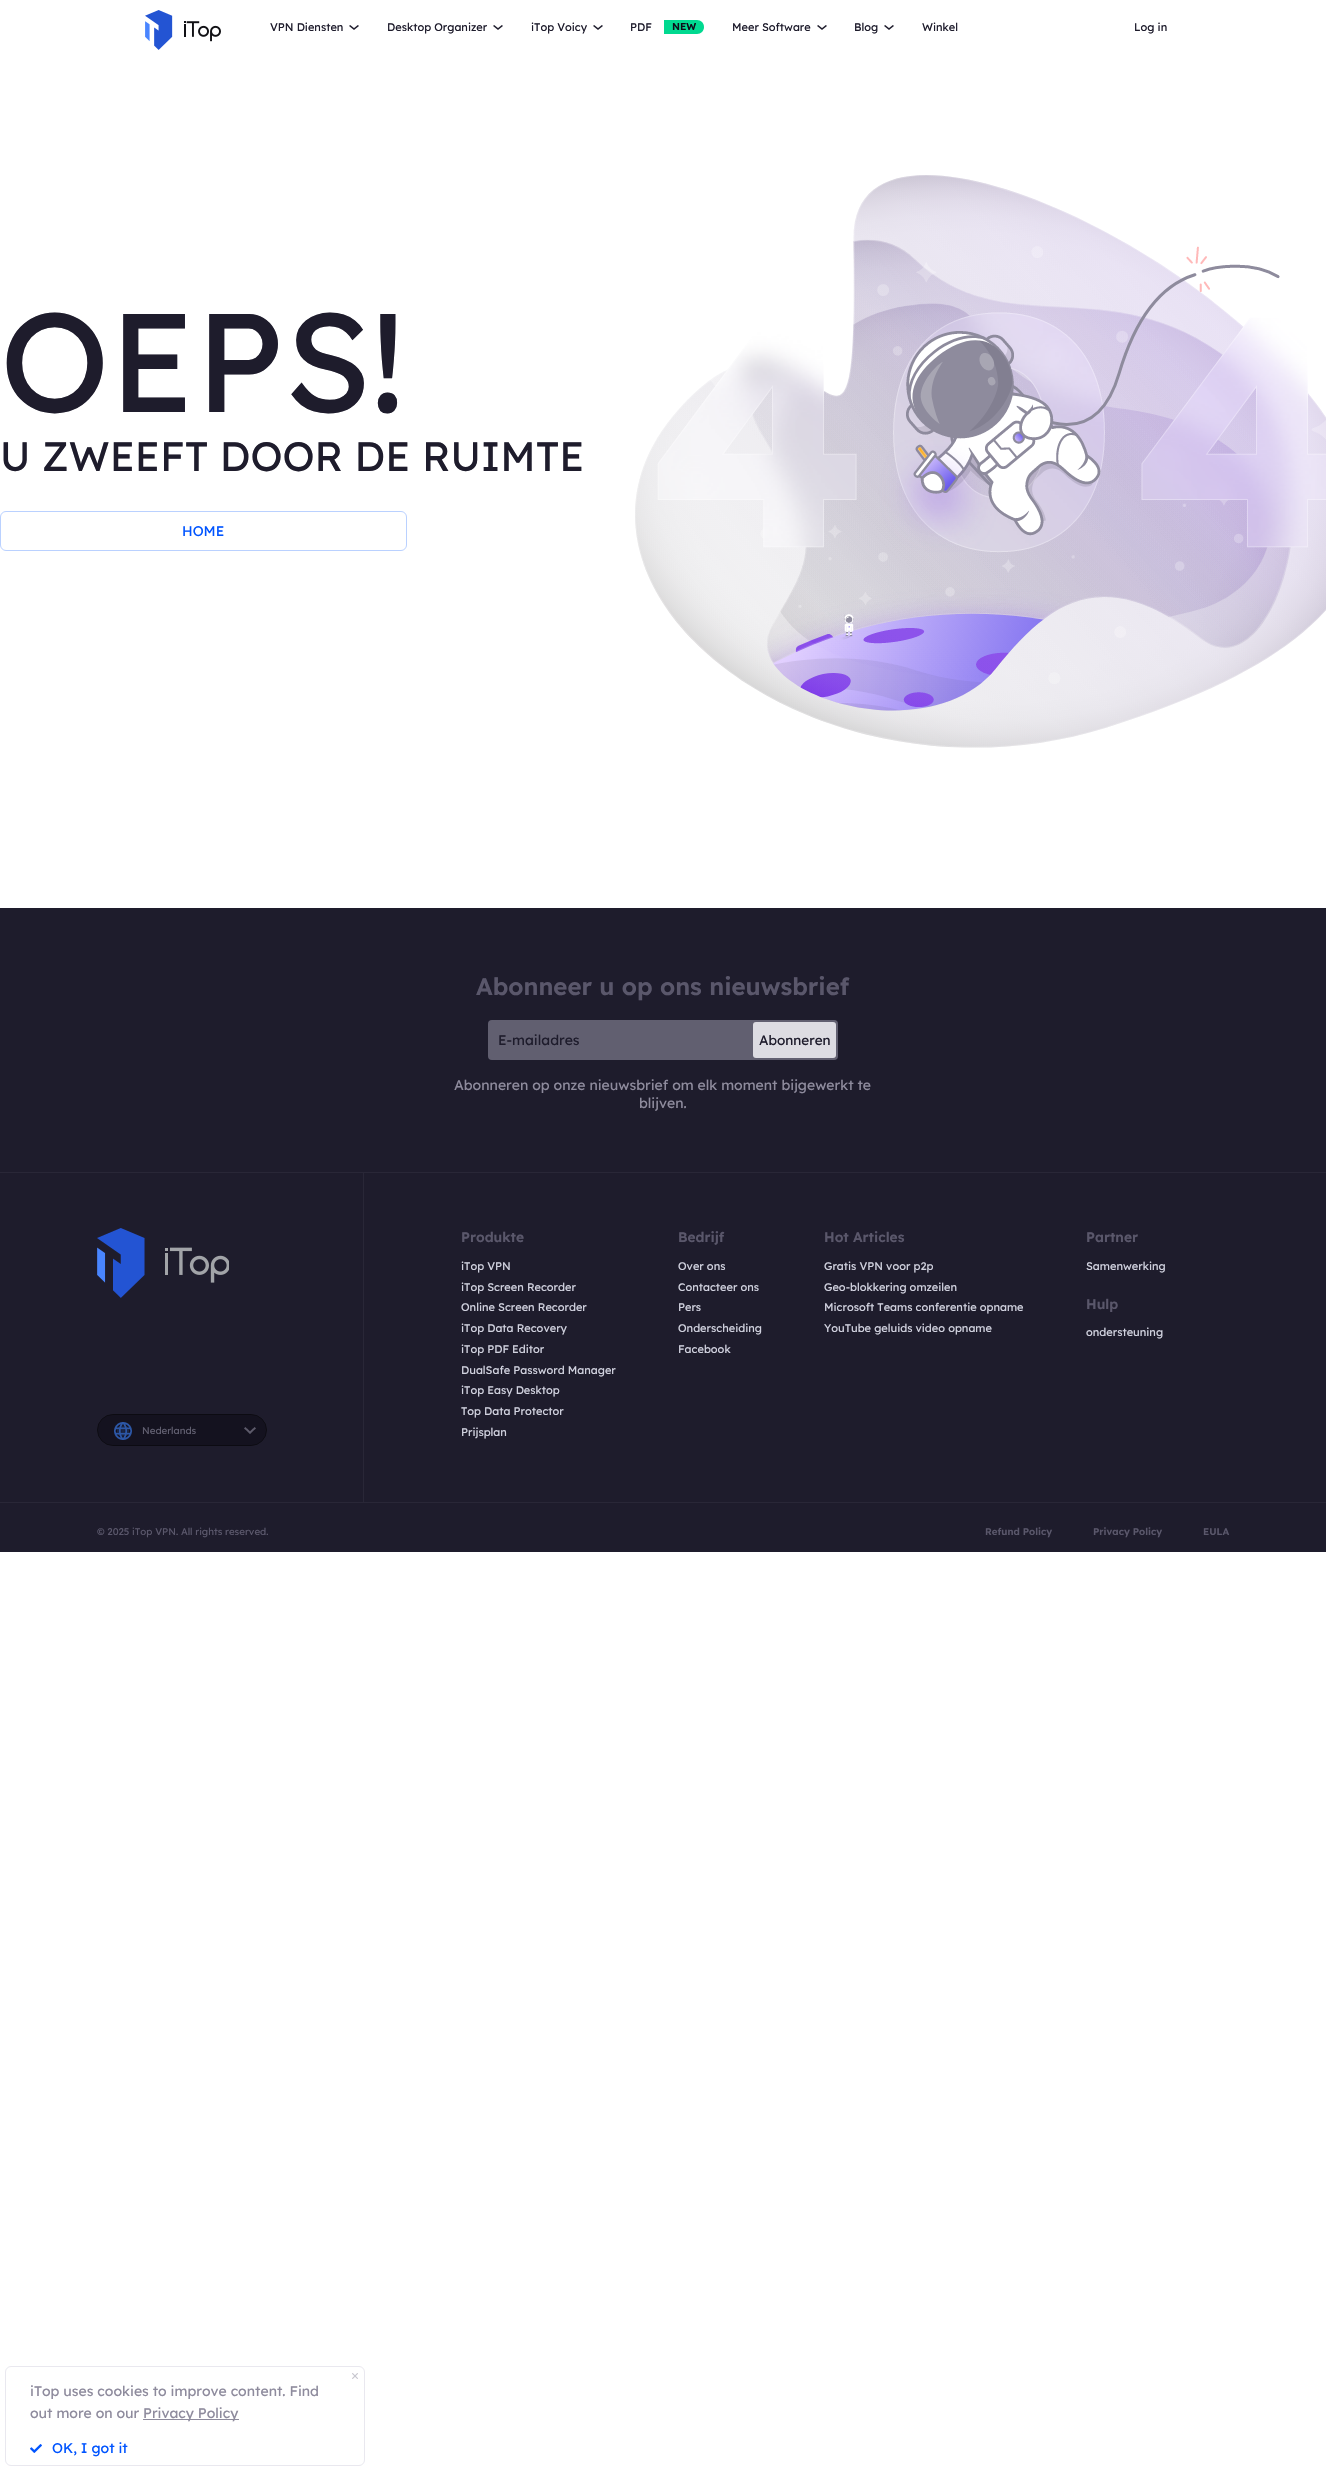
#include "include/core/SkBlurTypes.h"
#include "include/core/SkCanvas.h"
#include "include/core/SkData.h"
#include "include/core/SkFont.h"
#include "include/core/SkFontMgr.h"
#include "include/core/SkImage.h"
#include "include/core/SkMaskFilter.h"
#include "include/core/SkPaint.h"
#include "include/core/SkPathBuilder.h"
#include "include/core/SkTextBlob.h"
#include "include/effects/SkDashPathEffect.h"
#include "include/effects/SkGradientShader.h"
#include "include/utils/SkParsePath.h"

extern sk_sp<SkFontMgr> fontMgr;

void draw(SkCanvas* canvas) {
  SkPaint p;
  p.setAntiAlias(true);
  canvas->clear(SK_ColorWHITE);
  canvas->drawImageRect(SkImages::DeferredFromEncodedData(SkData::MakeFromFileName("images/1.png")), SkRect::MakeLTRB(145, 10, 221, 50), SkSamplingOptions());
  canvas->drawImageRect(SkImages::DeferredFromEncodedData(SkData::MakeFromFileName("images/2.png")), SkRect::MakeLTRB(349, 25, 359, 30), SkSamplingOptions());
  canvas->drawImageRect(SkImages::DeferredFromEncodedData(SkData::MakeFromFileName("images/2.png")), SkRect::MakeLTRB(493, 25, 503, 30), SkSamplingOptions());
  canvas->drawImageRect(SkImages::DeferredFromEncodedData(SkData::MakeFromFileName("images/2.png")), SkRect::MakeLTRB(593, 25, 603, 30), SkSamplingOptions());
  p.setColor(SkColorSetRGB(1, 217, 144));
  canvas->drawPath(SkPathBuilder().moveTo(664, 20).lineTo(697, 20).cubicTo(701, 20, 704, 23, 704, 27).cubicTo(704, 31, 701, 34, 697, 34).lineTo(664, 34).close().detach(), p);
  canvas->drawImageRect(SkImages::DeferredFromEncodedData(SkData::MakeFromFileName("images/2.png")), SkRect::MakeLTRB(817, 25, 827, 30), SkSamplingOptions());
  canvas->drawImageRect(SkImages::DeferredFromEncodedData(SkData::MakeFromFileName("images/2.png")), SkRect::MakeLTRB(884, 25, 894, 30), SkSamplingOptions());
  p.setStyle(SkPaint::kStroke_Style);
  p.setStrokeWidth(1);
  p.setColor(SkColorSetRGB(186, 209, 255));
  canvas->drawRoundRect(SkRect::MakeLTRB(0.5f, 511.5f, 406.5f, 550.5f), 5.5f, 5.5f, p);
  canvas->drawImageRect(SkImages::DeferredFromEncodedData(SkData::MakeFromFileName("images/3.png")), SkRect::MakeLTRB(635, 175, 1326, 748), SkSamplingOptions());
  p.setStyle(SkPaint::kFill_Style);
  p.setColor(SkColorSetRGB(30, 28, 44));
  canvas->drawRect(SkRect::MakeLTRB(0, 908, 1326, 1552), p);
  p.setColor(SkColorSetRGB(41, 39, 55));
  canvas->drawRect(SkRect::MakeLTRB(0, 1172, 1326, 1173), p);
  p.setColor(SkColorSetRGB(97, 95, 112));
  canvas->drawRoundRect(SkRect::MakeLTRB(488, 1020, 838, 1060), 4, 4, p);
  p.setColor(SkColorSetRGB(221, 220, 226));
  canvas->drawRoundRect(SkRect::MakeLTRB(753, 1022, 836, 1058), 3, 3, p);
  p.setColor(SkColorSetRGB(41, 39, 55));
  canvas->drawRect(SkRect::MakeLTRB(0, 1502, 1326, 1503), p);
  canvas->drawRect(SkRect::MakeLTRB(363, 1173, 364, 1502), p);
  canvas->drawImageRect(SkImages::DeferredFromEncodedData(SkData::MakeFromFileName("images/4.png")), SkRect::MakeLTRB(97, 1228, 229, 1298), SkSamplingOptions());
  p.setColor(SkColorSetRGB(20, 18, 31));
  canvas->drawRoundRect(SkRect::MakeLTRB(97.5f, 1414.5f, 266.5f, 1445.5f), 15.5f, 15.5f, p);
  p.setStyle(SkPaint::kStroke_Style);
  p.setColor(SkColorSetRGB(12, 11, 18));
  canvas->drawRoundRect(SkRect::MakeLTRB(97.5f, 1414.5f, 266.5f, 1445.5f), 15.5f, 15.5f, p);
  canvas->drawImageRect(SkImages::DeferredFromEncodedData(SkData::MakeFromFileName("images/5.png")), SkRect::MakeLTRB(114, 1422, 132, 1440), SkSamplingOptions());
  canvas->drawImageRect(SkImages::DeferredFromEncodedData(SkData::MakeFromFileName("images/6.png")), SkRect::MakeLTRB(244, 1427, 256, 1434), SkSamplingOptions());
  p.setColor(SkColorSetRGB(233, 232, 239));
  canvas->drawRoundRect(SkRect::MakeLTRB(5.5f, 2366.5f, 364.5f, 2465.5f), 5.5f, 5.5f, p);
  canvas->drawImageRect(SkImages::DeferredFromEncodedData(SkData::MakeFromFileName("images/7.png")), SkRect::MakeLTRB(352, 2373, 358, 2379), SkSamplingOptions());
  p.setStyle(SkPaint::kFill_Style);
  p.setColor(SkColorSetRGB(142, 139, 157));
  canvas->drawRect(SkRect::MakeLTRB(143, 2419, 239, 2420), p);
  canvas->drawImageRect(SkImages::DeferredFromEncodedData(SkData::MakeFromFileName("images/8.png")), SkRect::MakeLTRB(30, 2444, 42, 2453), SkSamplingOptions());
  SkFont font1(fontMgr->matchFamilyStyle("Lexend", SkFontStyle::Normal()), 11);
  font1.setSubpixel(true);
  p.setColor(SkColorSetRGB(30, 28, 44));
  canvas->drawString("VPN Diensten", 270, 31, font1, p);
  canvas->drawString("Desktop Organizer", 387, 31, font1, p);
  canvas->drawString("iTop Voicy", 531, 31, font1, p);
  canvas->drawString("PDF", 630, 31, font1, p);
  SkFont font2(fontMgr->matchFamilyStyle("Lexend", SkFontStyle(600, SkFontStyle::kNormal_Width, SkFontStyle::kUpright_Slant)), 10);
  font2.setSubpixel(true);
  p.setColor(SkColorSetRGB(14, 12, 26));
  canvas->drawString("NEW", 672, 30, font2, p);
  p.setColor(SkColorSetRGB(30, 28, 44));
  canvas->drawString("Meer Software", 732, 31, font1, p);
  canvas->drawString("Blog", 854, 31, font1, p);
  canvas->drawString("Winkel", 922, 31, font1, p);
  canvas->drawString("Log in", 1134, 31, font1, p);
  SkFont font3(fontMgr->matchFamilyStyle("Lexend", SkFontStyle::Normal()), 140);
  font3.setSubpixel(true);
  canvas->drawString("OEPS!", 0, 412, font3, p);
  SkFont font4(fontMgr->matchFamilyStyle("Lexend", SkFontStyle::Normal()), 41);
  font4.setSubpixel(true);
  canvas->drawString("U ZWEEFT DOOR DE RUIMTE", 0, 471, font4, p);
  SkFont font5(fontMgr->matchFamilyStyle("Lexend", SkFontStyle::Normal()), 14);
  font5.setSubpixel(true);
  p.setColor(SkColorSetRGB(0, 84, 255));
  canvas->drawString("HOME", 182, 536, font5, p);
  SkFont font6(fontMgr->matchFamilyStyle("Lexend", SkFontStyle(600, SkFontStyle::kNormal_Width, SkFontStyle::kUpright_Slant)), 24);
  font6.setSubpixel(true);
  p.setColor(SkColorSetRGB(90, 87, 107));
  canvas->drawString("Abonneer u op ons nieuwsbrief", 476, 995, font6, p);
  p.setColor(SkColorSetRGB(30, 28, 44));
  canvas->drawString("E-mailadres", 498, 1045, font5, p);
  SkFont font7(fontMgr->matchFamilyStyle("Lexend", SkFontStyle::Normal()), 13.5f);
  font7.setSubpixel(true);
  canvas->drawString("Abonneren", 759, 1045, font7, p);
  p.setColor(SkColorSetRGB(142, 139, 157));
  canvas->drawString("Abonneren op onze nieuwsbrief om elk moment bijgewerkt te", 454, 1090, font5, p);
  canvas->drawString("blijven.", 639, 1108, font5, p);
  SkFont font8(fontMgr->matchFamilyStyle("Lexend", SkFontStyle::Normal()), 9.7f);
  font8.setSubpixel(true);
  p.setColor(SkColorSetRGB(97, 95, 112));
  canvas->drawString("Nederlands", 142, 1434, font8, p);
  SkFont font9(fontMgr->matchFamilyStyle("Lexend", SkFontStyle(600, SkFontStyle::kNormal_Width, SkFontStyle::kUpright_Slant)), 13.75f);
  font9.setSubpixel(true);
  p.setColor(SkColorSetRGB(90, 87, 107));
  canvas->drawString("Produkte", 461, 1242, font9, p);
  p.setColor(SkColorSetRGB(209, 210, 223));
  canvas->drawString("iTop VPN", 461, 1270, font1, p);
  canvas->drawString("iTop Screen Recorder", 461, 1291, font1, p);
  canvas->drawString("Online Screen Recorder", 461, 1311, font1, p);
  canvas->drawString("iTop Data Recovery", 461, 1332, font1, p);
  canvas->drawString("iTop PDF Editor", 461, 1353, font1, p);
  canvas->drawString("DualSafe Password Manager", 461, 1374, font1, p);
  canvas->drawString("iTop Easy Desktop", 461, 1394, font1, p);
  canvas->drawString("Top Data Protector", 461, 1415, font1, p);
  canvas->drawString("Prijsplan", 461, 1436, font1, p);
  p.setColor(SkColorSetRGB(90, 87, 107));
  canvas->drawString("Bedrijf", 678, 1242, font9, p);
  p.setColor(SkColorSetRGB(209, 210, 223));
  canvas->drawString("Over ons", 678, 1270, font1, p);
  canvas->drawString("Contacteer ons", 678, 1291, font1, p);
  canvas->drawString("Pers", 678, 1311, font1, p);
  canvas->drawString("Onderscheiding", 678, 1332, font1, p);
  canvas->drawString("Facebook", 678, 1353, font1, p);
  p.setColor(SkColorSetRGB(90, 87, 107));
  canvas->drawString("Hot Articles", 824, 1242, font9, p);
  p.setColor(SkColorSetRGB(209, 210, 223));
  canvas->drawString("Gratis VPN voor p2p", 824, 1270, font1, p);
  canvas->drawString("Geo-blokkering omzeilen", 824, 1291, font1, p);
  canvas->drawString("Microsoft Teams conferentie opname", 824, 1311, font1, p);
  canvas->drawString("YouTube geluids video opname", 824, 1332, font1, p);
  p.setColor(SkColorSetRGB(90, 87, 107));
  canvas->drawString("Partner", 1086, 1242, font9, p);
  p.setColor(SkColorSetRGB(209, 210, 223));
  canvas->drawString("Samenwerking", 1086, 1270, font1, p);
  p.setColor(SkColorSetRGB(90, 87, 107));
  canvas->drawString("Hulp", 1086, 1309, font9, p);
  p.setColor(SkColorSetRGB(209, 210, 223));
  canvas->drawString("ondersteuning", 1086, 1336, font1, p);
  p.setColor(SkColorSetRGB(90, 87, 107));
  canvas->drawString("© 2025 iTop VPN. All rights reserved.", 97, 1535, font8, p);
  SkFont font10(fontMgr->matchFamilyStyle("Lexend", SkFontStyle(600, SkFontStyle::kNormal_Width, SkFontStyle::kUpright_Slant)), 9.7f);
  font10.setSubpixel(true);
  canvas->drawString("Refund Policy", 985, 1535, font10, p);
  canvas->drawString("Privacy Policy", 1093, 1535, font10, p);
  canvas->drawString("EULA", 1203, 1535, font10, p);
  p.setColor(SkColorSetRGB(142, 139, 157));
  canvas->drawString("iTop uses cookies to improve content. Find", 30, 2396, font5, p);
  canvas->drawString("out more on our", 30, 2418, font5, p);
  canvas->drawString("Privacy Policy", 143, 2418, font5, p);
  p.setColor(SkColorSetRGB(0, 84, 255));
  canvas->drawString("OK, I got it", 52, 2453, font5, p);
}
